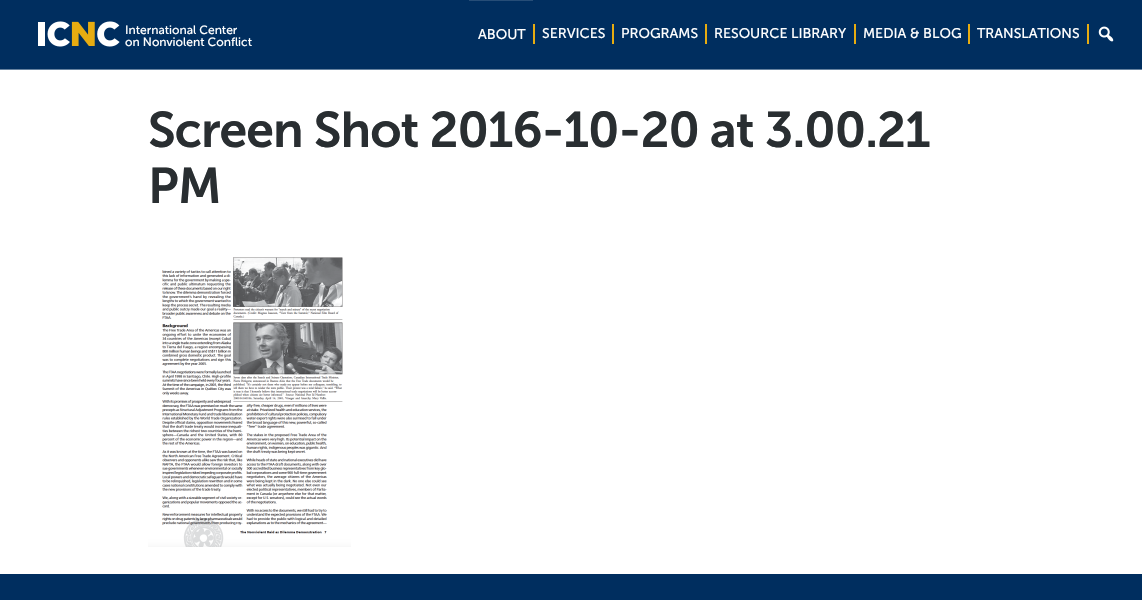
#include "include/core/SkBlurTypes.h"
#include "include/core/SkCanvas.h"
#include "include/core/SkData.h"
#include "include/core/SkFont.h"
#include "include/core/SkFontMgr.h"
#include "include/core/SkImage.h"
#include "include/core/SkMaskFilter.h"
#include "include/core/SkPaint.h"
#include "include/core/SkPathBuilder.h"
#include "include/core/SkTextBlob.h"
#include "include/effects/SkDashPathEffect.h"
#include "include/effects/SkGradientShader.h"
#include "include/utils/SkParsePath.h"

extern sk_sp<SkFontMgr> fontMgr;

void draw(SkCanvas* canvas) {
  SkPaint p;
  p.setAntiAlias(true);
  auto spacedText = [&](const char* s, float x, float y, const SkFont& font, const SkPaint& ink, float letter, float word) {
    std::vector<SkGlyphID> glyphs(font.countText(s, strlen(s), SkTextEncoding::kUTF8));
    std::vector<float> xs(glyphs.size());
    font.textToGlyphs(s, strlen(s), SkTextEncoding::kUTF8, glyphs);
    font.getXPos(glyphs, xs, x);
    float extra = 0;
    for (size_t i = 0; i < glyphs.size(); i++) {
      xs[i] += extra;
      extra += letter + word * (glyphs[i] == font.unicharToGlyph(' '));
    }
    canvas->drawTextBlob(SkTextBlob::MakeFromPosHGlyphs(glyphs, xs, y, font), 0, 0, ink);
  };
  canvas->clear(SK_ColorWHITE);
  p.setColor(SkColorSetRGB(0, 46, 95));
  canvas->drawRect(SkRect::MakeLTRB(0, 0, 1142, 69), p);
  p.setColor(SkColorSetRGB(102, 130, 159));
  canvas->drawRect(SkRect::MakeLTRB(0, 69, 1142, 70), p);
  canvas->drawImageRect(SkImages::DeferredFromEncodedData(SkData::MakeFromFileName("images/1.png")), SkRect::MakeLTRB(38, 21, 120, 47), SkSamplingOptions());
  p.setColor(SkColorSetRGB(38, 77, 119));
  canvas->drawRect(SkRect::MakeLTRB(469, 0, 533, 1), p);
  p.setColor(SkColorSetRGB(231, 172, 17));
  canvas->drawRect(SkRect::MakeLTRB(533, 24, 535, 44), p);
  canvas->drawRect(SkRect::MakeLTRB(612, 24, 614, 44), p);
  canvas->drawRect(SkRect::MakeLTRB(705, 24, 707, 44), p);
  canvas->drawRect(SkRect::MakeLTRB(854, 24, 856, 44), p);
  canvas->drawRect(SkRect::MakeLTRB(968, 24, 970, 44), p);
  canvas->drawRect(SkRect::MakeLTRB(1087, 24, 1089, 44), p);
  canvas->drawImageRect(SkImages::DeferredFromEncodedData(SkData::MakeFromFileName("images/2.png")), SkRect::MakeLTRB(1098, 26, 1114, 42), SkSamplingOptions());
  canvas->drawImageRect(SkImages::DeferredFromEncodedData(SkData::MakeFromFileName("images/3.png")), SkRect::MakeLTRB(148, 257, 351, 547), SkSamplingOptions());
  p.setColor(SkColorSetRGB(0, 46, 95));
  canvas->drawRect(SkRect::MakeLTRB(0, 574, 1142, 600), p);
  SkFont font1(fontMgr->matchFamilyStyle("Museo Sans", SkFontStyle::Normal()), 12);
  font1.setSubpixel(true);
  p.setColor(SK_ColorWHITE);
  canvas->drawString("International Center", 125, 34, font1, p);
  canvas->drawString("on Nonviolent Conflict", 125, 46, font1, p);
  SkFont font2(fontMgr->matchFamilyStyle("Museo Sans", SkFontStyle::Normal()), 14);
  font2.setSubpixel(true);
  canvas->drawString("ABOUT", 478, 39, font2, p);
  canvas->drawString("SERVICES", 542, 38, font2, p);
  canvas->drawString("PROGRAMS", 621, 38, font2, p);
  canvas->drawString("RESOURCE LIBRARY", 714, 38, font2, p);
  canvas->drawString("MEDIA & BLOG", 863, 38, font2, p);
  canvas->drawString("TRANSLATIONS", 977, 38, font2, p);
  SkFont font3(fontMgr->matchFamilyStyle("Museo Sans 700", SkFontStyle(600, SkFontStyle::kNormal_Width, SkFontStyle::kUpright_Slant)), 50);
  font3.setSubpixel(true);
  p.setColor(SkColorSetRGB(41, 46, 49));
  spacedText("Screen Shot 2016-10-20 at 3.00.21", 148, 147, font3, p, -1, 0);
  spacedText("PM", 148, 203, font3, p, -1, 0);
}
